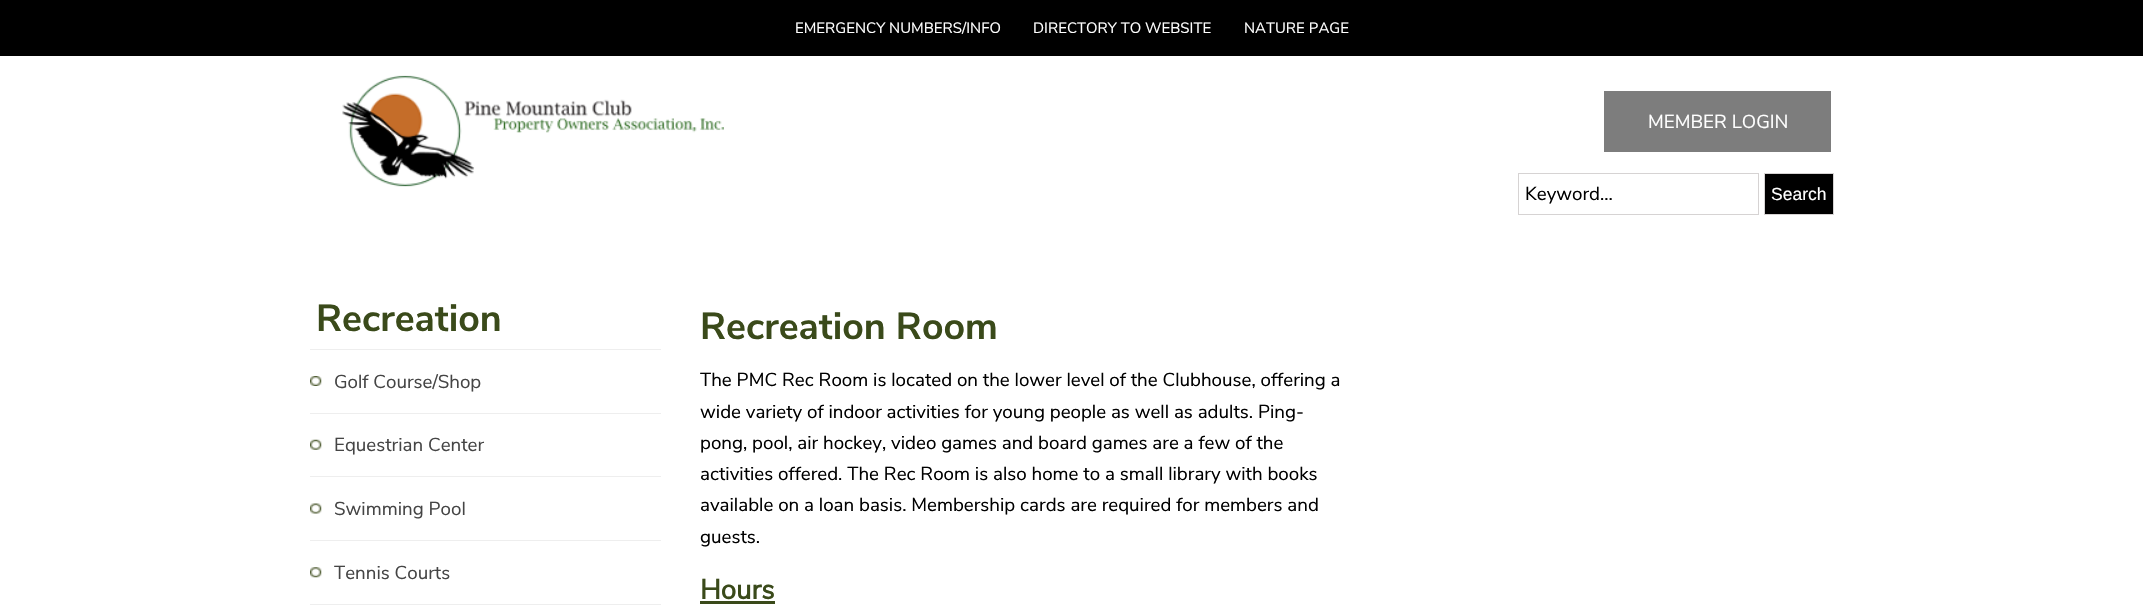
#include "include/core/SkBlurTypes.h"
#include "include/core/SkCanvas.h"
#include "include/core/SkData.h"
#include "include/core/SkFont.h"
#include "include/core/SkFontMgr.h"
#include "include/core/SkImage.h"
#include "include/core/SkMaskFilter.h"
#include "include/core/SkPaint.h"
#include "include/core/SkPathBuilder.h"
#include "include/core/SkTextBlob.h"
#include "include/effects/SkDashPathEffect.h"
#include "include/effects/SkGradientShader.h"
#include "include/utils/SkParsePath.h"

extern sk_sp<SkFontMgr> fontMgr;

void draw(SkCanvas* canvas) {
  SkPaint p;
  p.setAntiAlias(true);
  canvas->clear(SK_ColorWHITE);
  p.setColor(SK_ColorBLACK);
  canvas->drawRect(SkRect::MakeLTRB(0, 0, 2143, 56), p);
  canvas->drawImageRect(SkImages::DeferredFromEncodedData(SkData::MakeFromFileName("images/1.png")), SkRect::MakeLTRB(342, 75, 724, 187), SkSamplingOptions());
  p.setColor(SkColorSetRGB(125, 125, 125));
  canvas->drawRect(SkRect::MakeLTRB(1604, 91, 1831, 152), p);
  p.setStyle(SkPaint::kStroke_Style);
  p.setStrokeWidth(1);
  p.setColor(SkColorSetRGB(214, 211, 211));
  canvas->drawRect(SkRect::MakeLTRB(1518.5f, 173.5f, 1758.5f, 214.5f), p);
  p.setStyle(SkPaint::kFill_Style);
  p.setColor(SK_ColorBLACK);
  canvas->drawRect(SkRect::MakeLTRB(1764.5f, 173.5f, 1833.5f, 214.5f), p);
  p.setStyle(SkPaint::kStroke_Style);
  p.setColor(SkColorSetRGB(214, 211, 211));
  canvas->drawRect(SkRect::MakeLTRB(1764.5f, 173.5f, 1833.5f, 214.5f), p);
  p.setStyle(SkPaint::kFill_Style);
  p.setColor(SkColorSetRGB(238, 238, 238));
  canvas->drawRect(SkRect::MakeLTRB(310, 349, 661, 350), p);
  canvas->drawRect(SkRect::MakeLTRB(310, 413, 661, 414), p);
  canvas->drawImageRect(SkImages::DeferredFromEncodedData(SkData::MakeFromFileName("images/2.png")), SkRect::MakeLTRB(310, 376, 322, 386), SkSamplingOptions());
  canvas->drawRect(SkRect::MakeLTRB(310, 476, 661, 477), p);
  canvas->drawImageRect(SkImages::DeferredFromEncodedData(SkData::MakeFromFileName("images/3.png")), SkRect::MakeLTRB(310, 439, 322, 450), SkSamplingOptions());
  canvas->drawRect(SkRect::MakeLTRB(310, 540, 661, 541), p);
  canvas->drawImageRect(SkImages::DeferredFromEncodedData(SkData::MakeFromFileName("images/4.png")), SkRect::MakeLTRB(310, 503, 322, 514), SkSamplingOptions());
  canvas->drawRect(SkRect::MakeLTRB(310, 604, 661, 605), p);
  canvas->drawImageRect(SkImages::DeferredFromEncodedData(SkData::MakeFromFileName("images/5.png")), SkRect::MakeLTRB(310, 567, 322, 578), SkSamplingOptions());
  p.setColor(SkColorSetRGB(58, 74, 26));
  canvas->drawRect(SkRect::MakeLTRB(700, 601, 775, 604), p);
  SkFont font1(fontMgr->matchFamilyStyle("Nunito Sans", SkFontStyle::Normal()), 15);
  font1.setSubpixel(true);
  p.setColor(SK_ColorWHITE);
  canvas->drawString("EMERGENCY NUMBERS/INFO", 795, 33, font1, p);
  canvas->drawString("DIRECTORY TO WEBSITE", 1033, 33, font1, p);
  canvas->drawString("NATURE PAGE", 1244, 33, font1, p);
  SkFont font2(fontMgr->matchFamilyStyle("Nunito Sans", SkFontStyle::Normal()), 18.75f);
  font2.setSubpixel(true);
  canvas->drawString("MEMBER LOGIN", 1648, 128, font2, p);
  p.setColor(SK_ColorBLACK);
  canvas->drawString("Keyword...", 1525, 200, font2, p);
  SkFont font3(fontMgr->matchFamilyStyle("Liberation Sans", SkFontStyle::Normal()), 17.5f);
  font3.setSubpixel(true);
  p.setColor(SK_ColorWHITE);
  canvas->drawString("Search", 1771, 200, font3, p);
  SkFont font4(fontMgr->matchFamilyStyle("Nunito Sans", SkFontStyle::Bold()), 37.5f);
  font4.setSubpixel(true);
  p.setColor(SkColorSetRGB(58, 74, 26));
  canvas->drawString("Recreation", 316, 331, font4, p);
  p.setColor(SkColorSetRGB(69, 69, 69));
  canvas->drawString("Golf Course/Shop", 334, 388, font2, p);
  canvas->drawString("Equestrian Center", 334, 451, font2, p);
  canvas->drawString("Swimming Pool", 334, 515, font2, p);
  canvas->drawString("Tennis Courts", 334, 579, font2, p);
  p.setColor(SkColorSetRGB(58, 74, 26));
  canvas->drawString("Recreation Room", 700, 339, font4, p);
  p.setColor(SK_ColorBLACK);
  canvas->drawString("The PMC Rec Room is located on the lower level of the Clubhouse, offering a", 700, 386, font2, p);
  canvas->drawString("wide variety of indoor activities for young people as well as adults. Ping-", 700, 418, font2, p);
  canvas->drawString("pong, pool, air hockey, video games and board games are a few of the", 700, 449, font2, p);
  canvas->drawString("activities offered. The Rec Room is also home to a small library with books", 700, 480, font2, p);
  canvas->drawString("available on a loan basis. Membership cards are required for members and", 700, 511, font2, p);
  canvas->drawString("guests.", 700, 543, font2, p);
  SkFont font5(fontMgr->matchFamilyStyle("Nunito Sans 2", SkFontStyle::Bold()), 27.5f);
  font5.setSubpixel(true);
  p.setColor(SkColorSetRGB(58, 74, 26));
  canvas->drawString("Hours", 700, 599, font5, p);
}
